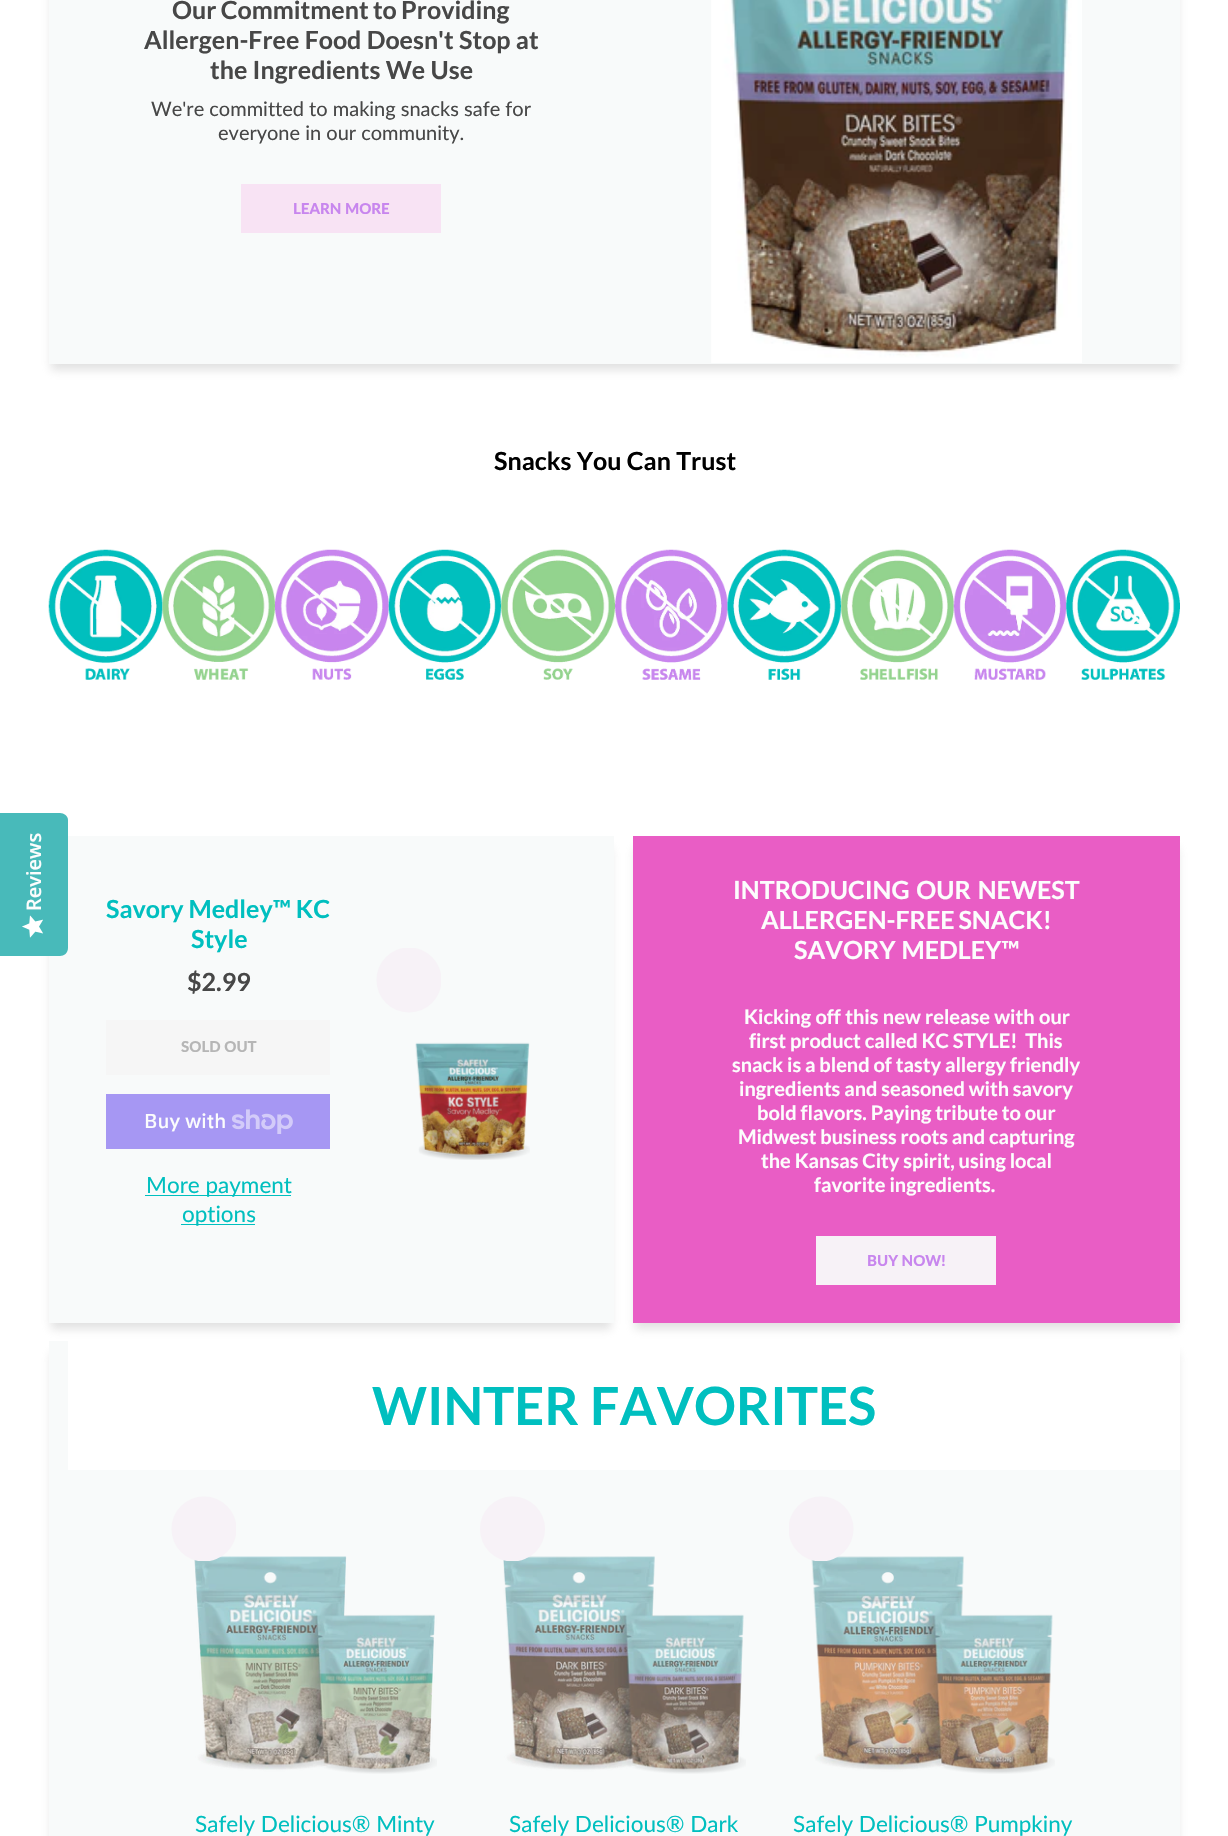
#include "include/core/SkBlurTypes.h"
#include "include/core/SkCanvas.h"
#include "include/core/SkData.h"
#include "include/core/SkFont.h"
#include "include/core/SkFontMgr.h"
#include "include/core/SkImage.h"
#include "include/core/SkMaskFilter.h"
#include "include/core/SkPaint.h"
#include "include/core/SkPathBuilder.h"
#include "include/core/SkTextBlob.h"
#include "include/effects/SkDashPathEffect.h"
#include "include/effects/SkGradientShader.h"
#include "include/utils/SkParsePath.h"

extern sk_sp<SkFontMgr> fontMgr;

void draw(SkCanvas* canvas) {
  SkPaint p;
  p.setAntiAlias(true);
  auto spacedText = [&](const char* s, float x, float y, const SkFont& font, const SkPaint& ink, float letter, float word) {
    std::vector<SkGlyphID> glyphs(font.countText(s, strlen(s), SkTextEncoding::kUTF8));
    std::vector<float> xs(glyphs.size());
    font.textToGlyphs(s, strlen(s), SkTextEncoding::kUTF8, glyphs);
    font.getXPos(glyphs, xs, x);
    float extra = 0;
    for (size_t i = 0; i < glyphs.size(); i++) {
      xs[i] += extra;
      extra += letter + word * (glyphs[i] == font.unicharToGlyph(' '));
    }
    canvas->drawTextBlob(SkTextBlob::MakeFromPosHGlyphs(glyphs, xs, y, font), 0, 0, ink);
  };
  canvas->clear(SK_ColorWHITE);
  p.setColor(SkColorSetARGB(82, 163, 163, 163));
  p.setMaskFilter(SkMaskFilter::MakeBlur(kNormal_SkBlurStyle, 4.5f));
  canvas->drawRect(SkRect::MakeLTRB(51, 848, 611, 1329), p);
  p.setMaskFilter(nullptr);
  p.setColor(SkColorSetRGB(248, 250, 250));
  canvas->drawRect(SkRect::MakeLTRB(49, 836, 614, 1323), p);
  p.setColor(SkColorSetRGB(72, 186, 186));
  canvas->drawPath(SkPathBuilder().moveTo(0, 956).lineTo(0, 813).lineTo(60, 813).cubicTo(64, 813, 68, 816, 68, 820).lineTo(68, 948).cubicTo(68, 953, 64, 956, 60, 956).close().detach(), p);
  canvas->drawImageRect(SkImages::DeferredFromEncodedData(SkData::MakeFromFileName("images/1.png")), SkRect::MakeLTRB(22, 915, 43, 938), SkSamplingOptions());
  p.setColor(SkColorSetARGB(82, 163, 163, 163));
  p.setMaskFilter(SkMaskFilter::MakeBlur(kNormal_SkBlurStyle, 4.5f));
  canvas->drawRect(SkRect::MakeLTRB(51, -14, 1178, 370), p);
  p.setMaskFilter(nullptr);
  p.setColor(SkColorSetRGB(248, 250, 250));
  canvas->drawRect(SkRect::MakeLTRB(49, 0, 1180, 364), p);
  p.setColor(SkColorSetRGB(248, 227, 244));
  canvas->drawRect(SkRect::MakeLTRB(241, 184, 441, 233), p);
  canvas->drawImageRect(SkImages::DeferredFromEncodedData(SkData::MakeFromFileName("images/2.png")), SkRect::MakeLTRB(711, 0, 1082, 363), SkSamplingOptions());
  canvas->drawImageRect(SkImages::DeferredFromEncodedData(SkData::MakeFromFileName("images/3.png")), SkRect::MakeLTRB(48, 549, 163, 680), SkSamplingOptions());
  canvas->drawImageRect(SkImages::DeferredFromEncodedData(SkData::MakeFromFileName("images/4.png")), SkRect::MakeLTRB(162, 549, 275, 680), SkSamplingOptions());
  canvas->drawImageRect(SkImages::DeferredFromEncodedData(SkData::MakeFromFileName("images/5.png")), SkRect::MakeLTRB(275, 549, 389, 680), SkSamplingOptions());
  canvas->drawImageRect(SkImages::DeferredFromEncodedData(SkData::MakeFromFileName("images/6.png")), SkRect::MakeLTRB(388, 549, 502, 680), SkSamplingOptions());
  canvas->drawImageRect(SkImages::DeferredFromEncodedData(SkData::MakeFromFileName("images/7.png")), SkRect::MakeLTRB(501, 549, 615, 680), SkSamplingOptions());
  canvas->drawImageRect(SkImages::DeferredFromEncodedData(SkData::MakeFromFileName("images/8.png")), SkRect::MakeLTRB(615, 549, 728, 680), SkSamplingOptions());
  canvas->drawImageRect(SkImages::DeferredFromEncodedData(SkData::MakeFromFileName("images/9.png")), SkRect::MakeLTRB(727, 549, 842, 680), SkSamplingOptions());
  canvas->drawImageRect(SkImages::DeferredFromEncodedData(SkData::MakeFromFileName("images/10.png")), SkRect::MakeLTRB(841, 549, 954, 680), SkSamplingOptions());
  canvas->drawImageRect(SkImages::DeferredFromEncodedData(SkData::MakeFromFileName("images/11.png")), SkRect::MakeLTRB(953, 549, 1067, 680), SkSamplingOptions());
  canvas->drawImageRect(SkImages::DeferredFromEncodedData(SkData::MakeFromFileName("images/12.png")), SkRect::MakeLTRB(1066, 549, 1180, 680), SkSamplingOptions());
  p.setColor(SkColorSetRGB(246, 246, 246));
  canvas->drawRect(SkRect::MakeLTRB(106, 1020, 330, 1075), p);
  p.setColor(SkColorSetRGB(166, 151, 243));
  canvas->drawRect(SkRect::MakeLTRB(106, 1094, 330, 1149), p);
  canvas->drawImageRect(SkImages::DeferredFromEncodedData(SkData::MakeFromFileName("images/13.png")), SkRect::MakeLTRB(232, 1109, 293, 1134), SkSamplingOptions());
  p.setColor(SkColorSetRGB(0, 191, 191));
  canvas->drawRect(SkRect::MakeLTRB(145, 1195, 291, 1196), p);
  canvas->drawRect(SkRect::MakeLTRB(181, 1224, 255, 1225), p);
  canvas->save();
  canvas->clipRect(SkRect::MakeLTRB(376, 948, 441, 1013));
  p.setColor(SkColorSetRGB(247, 242, 247));
  canvas->drawCircle(409, 980, 32.5f, p);
  canvas->restore();
  canvas->drawImageRect(SkImages::DeferredFromEncodedData(SkData::MakeFromFileName("images/14.png")), SkRect::MakeLTRB(415, 1042, 530, 1160), SkSamplingOptions());
  p.setColor(SkColorSetARGB(82, 163, 163, 163));
  p.setMaskFilter(SkMaskFilter::MakeBlur(kNormal_SkBlurStyle, 4.5f));
  canvas->drawRect(SkRect::MakeLTRB(635, 848, 1178, 1329), p);
  p.setMaskFilter(nullptr);
  p.setColor(SkColorSetRGB(233, 93, 197));
  canvas->drawRect(SkRect::MakeLTRB(633, 836, 1180, 1323), p);
  p.setColor(SkColorSetRGB(247, 242, 247));
  canvas->drawRect(SkRect::MakeLTRB(816, 1236, 996, 1285), p);
  p.setColor(SkColorSetARGB(82, 163, 163, 163));
  p.setMaskFilter(SkMaskFilter::MakeBlur(kNormal_SkBlurStyle, 4.5f));
  canvas->drawRect(SkRect::MakeLTRB(51, 1353, 1178, 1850), p);
  p.setMaskFilter(nullptr);
  p.setColor(SkColorSetRGB(248, 250, 250));
  canvas->drawRect(SkRect::MakeLTRB(49, 1341, 1180, 1836), p);
  p.setColor(SK_ColorWHITE);
  canvas->drawRect(SkRect::MakeLTRB(68, 1341, 1180, 1470), p);
  canvas->drawImageRect(SkImages::DeferredFromEncodedData(SkData::MakeFromFileName("images/15.png")), SkRect::MakeLTRB(194, 1556, 437, 1774), SkSamplingOptions());
  canvas->save();
  canvas->clipRect(SkRect::MakeLTRB(171, 1496, 236, 1561));
  p.setColor(SkColorSetRGB(247, 242, 247));
  canvas->drawCircle(204, 1529, 32.5f, p);
  canvas->restore();
  canvas->drawImageRect(SkImages::DeferredFromEncodedData(SkData::MakeFromFileName("images/16.png")), SkRect::MakeLTRB(503, 1556, 746, 1774), SkSamplingOptions());
  canvas->save();
  canvas->clipRect(SkRect::MakeLTRB(480, 1496, 545, 1561));
  canvas->drawCircle(512.5f, 1529, 32.5f, p);
  canvas->restore();
  canvas->drawImageRect(SkImages::DeferredFromEncodedData(SkData::MakeFromFileName("images/17.png")), SkRect::MakeLTRB(811, 1556, 1055, 1774), SkSamplingOptions());
  canvas->save();
  canvas->clipRect(SkRect::MakeLTRB(789, 1496, 854, 1561));
  canvas->drawCircle(821, 1529, 32.5f, p);
  canvas->restore();
  SkFont font1(fontMgr->matchFamilyStyle("Open Sans", SkFontStyle(600, SkFontStyle::kNormal_Width, SkFontStyle::kUpright_Slant)), 20);
  font1.setSubpixel(true);
  p.setColor(SkColorSetRGB(252, 253, 253));
  canvas->save();
  canvas->rotate(-90, 41, 911);
  canvas->drawString("Reviews", 41, 911, font1, p);
  canvas->restore();
  SkFont font2(fontMgr->matchFamilyStyle("Lato", SkFontStyle::Bold()), 25);
  font2.setSubpixel(true);
  p.setColor(SkColorSetRGB(71, 71, 71));
  spacedText("Our Commitment to Providing", 172, 19, font2, p, 0, -0.5f);
  spacedText("Allergen-Free Food Doesn't Stop at", 144, 49, font2, p, 0, 0.5f);
  spacedText("the Ingredients We Use", 210, 79, font2, p, 0, 0.5f);
  SkFont font3(fontMgr->matchFamilyStyle("Lato", SkFontStyle::Normal()), 20);
  font3.setSubpixel(true);
  canvas->drawString("We're committed to making snacks safe for", 151, 116, font3, p);
  canvas->drawString("everyone in our community.", 218, 140, font3, p);
  SkFont font4(fontMgr->matchFamilyStyle("Lato", SkFontStyle(900, SkFontStyle::kNormal_Width, SkFontStyle::kUpright_Slant)), 15);
  font4.setSubpixel(true);
  p.setColor(SkColorSetRGB(200, 134, 238));
  canvas->drawString("LEARN MORE", 293, 214, font4, p);
  p.setColor(SK_ColorBLACK);
  spacedText("Snacks You Can Trust", 494, 470, font2, p, 0, 0.5f);
  p.setColor(SkColorSetRGB(0, 191, 191));
  canvas->drawString("Savory Medley™ KC", 106, 918, font2, p);
  canvas->drawString("Style", 191, 948, font2, p);
  p.setColor(SkColorSetRGB(71, 71, 71));
  canvas->drawString("$2.99", 187, 991, font2, p);
  p.setColor(SkColorSetRGB(182, 182, 182));
  canvas->drawString("SOLD OUT", 181, 1052, font4, p);
  SkFont font5(fontMgr->matchFamilyStyle("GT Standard", SkFontStyle(500, SkFontStyle::kNormal_Width, SkFontStyle::kUpright_Slant)), 20);
  font5.setSubpixel(true);
  p.setColor(SkColorSetRGB(252, 253, 253));
  canvas->drawString("Buy with", 144, 1128, font5, p);
  SkFont font6(fontMgr->matchFamilyStyle("Lato", SkFontStyle::Normal()), 22.5f);
  font6.setSubpixel(true);
  p.setColor(SkColorSetRGB(0, 191, 191));
  canvas->drawString("More payment", 146, 1193, font6, p);
  canvas->drawString("options", 182, 1222, font6, p);
  p.setColor(SkColorSetRGB(252, 253, 253));
  spacedText("INTRODUCING OUR NEWEST", 733, 899, font2, p, 0, 2);
  spacedText("ALLERGEN-FREE SNACK!", 761, 929, font2, p, 0, -1);
  spacedText("SAVORY MEDLEY™", 794, 959, font2, p, 0, 1);
  SkFont font7(fontMgr->matchFamilyStyle("Lato", SkFontStyle::Bold()), 20);
  font7.setSubpixel(true);
  spacedText("Kicking off this new release with our", 744, 1024, font7, p, 0, 0.5f);
  canvas->drawString("first product called KC STYLE!  This", 749, 1048, font7, p);
  canvas->drawString("snack is a blend of tasty allergy friendly", 732, 1072, font7, p);
  canvas->drawString("ingredients and seasoned with savory", 739, 1096, font7, p);
  canvas->drawString("bold flavors. Paying tribute to our", 757, 1120, font7, p);
  canvas->drawString("Midwest business roots and capturing", 738, 1144, font7, p);
  canvas->drawString("the Kansas City spirit, using local", 761, 1168, font7, p);
  canvas->drawString("favorite ingredients.", 814, 1192, font7, p);
  p.setColor(SkColorSetRGB(200, 134, 238));
  canvas->drawString("BUY NOW!", 867, 1266, font4, p);
  SkFont font8(fontMgr->matchFamilyStyle("Lato", SkFontStyle::Bold()), 52.5f);
  font8.setSubpixel(true);
  p.setColor(SkColorSetRGB(0, 191, 191));
  spacedText("WINTER FAVORITES", 372, 1425, font8, p, 0, 1);
  canvas->drawString("Safely Delicious® Minty", 195, 1832, font6, p);
  canvas->drawString("Safely Delicious® Dark", 509, 1832, font6, p);
  canvas->drawString("Safely Delicious® Pumpkiny", 793, 1832, font6, p);
}
